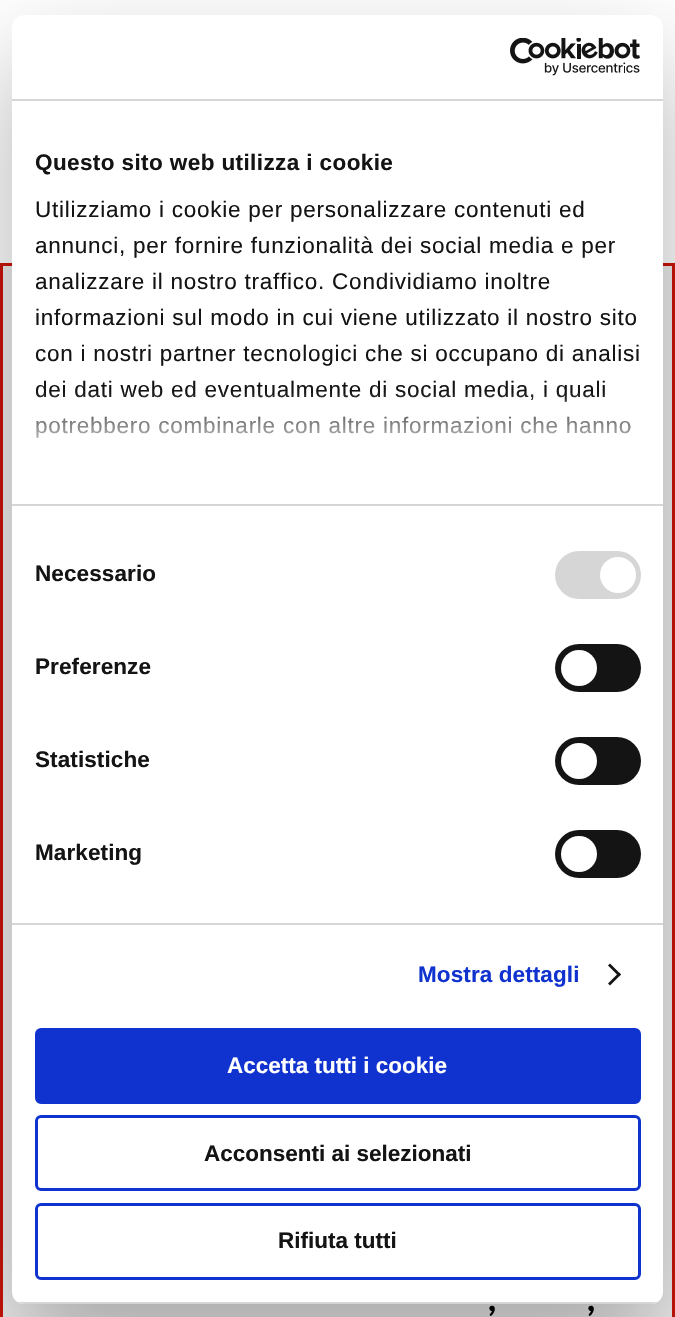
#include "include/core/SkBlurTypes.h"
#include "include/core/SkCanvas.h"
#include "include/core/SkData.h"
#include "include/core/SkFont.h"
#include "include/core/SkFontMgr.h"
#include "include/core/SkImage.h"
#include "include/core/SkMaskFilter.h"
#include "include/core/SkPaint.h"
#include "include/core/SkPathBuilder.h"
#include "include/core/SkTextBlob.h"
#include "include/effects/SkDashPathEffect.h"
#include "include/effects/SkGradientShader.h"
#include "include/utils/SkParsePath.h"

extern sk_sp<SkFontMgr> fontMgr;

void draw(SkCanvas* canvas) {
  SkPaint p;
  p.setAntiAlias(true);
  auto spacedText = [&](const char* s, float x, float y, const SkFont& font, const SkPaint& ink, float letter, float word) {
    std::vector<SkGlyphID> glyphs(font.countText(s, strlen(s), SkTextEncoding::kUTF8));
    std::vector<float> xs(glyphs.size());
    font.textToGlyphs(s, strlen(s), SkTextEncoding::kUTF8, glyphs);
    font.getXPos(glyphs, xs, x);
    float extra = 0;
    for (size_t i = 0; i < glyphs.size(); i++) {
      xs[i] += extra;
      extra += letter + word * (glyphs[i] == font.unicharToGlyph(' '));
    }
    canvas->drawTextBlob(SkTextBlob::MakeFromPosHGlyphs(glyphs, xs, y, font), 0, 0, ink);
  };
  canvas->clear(SK_ColorWHITE);
  p.setColor(SkColorSetRGB(239, 239, 239));
  canvas->drawRect(SkRect::MakeLTRB(1.5f, 264.5f, 673.5f, 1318.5f), p);
  p.setStyle(SkPaint::kStroke_Style);
  p.setStrokeWidth(3);
  p.setColor(SkColorSetRGB(205, 20, 8));
  canvas->drawRect(SkRect::MakeLTRB(1.5f, 264.5f, 673.5f, 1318.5f), p);
  p.setStyle(SkPaint::kFill_Style);
  p.setColor(SkColorSetARGB(77, 0, 0, 0));
  p.setMaskFilter(SkMaskFilter::MakeBlur(kNormal_SkBlurStyle, 51));
  canvas->drawRoundRect(SkRect::MakeLTRB(12, 63, 663, 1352), 12, 12, p);
  p.setMaskFilter(nullptr);
  p.setColor(SK_ColorWHITE);
  canvas->drawRoundRect(SkRect::MakeLTRB(12, 15, 663, 1304), 12, 12, p);
  p.setColor(SkColorSetRGB(214, 214, 214));
  canvas->drawRect(SkRect::MakeLTRB(12, 99, 663, 101), p);
  canvas->drawImageRect(SkImages::DeferredFromEncodedData(SkData::MakeFromFileName("images/1.png")), SkRect::MakeLTRB(510, 38, 640, 76), SkSamplingOptions());
  canvas->drawRect(SkRect::MakeLTRB(12, 504, 663, 506), p);
  canvas->drawRect(SkRect::MakeLTRB(12, 923, 663, 925), p);
  canvas->drawRoundRect(SkRect::MakeLTRB(555, 551, 641, 599), 24, 24, p);
  p.setColor(SK_ColorWHITE);
  canvas->drawCircle(618, 575, 18, p);
  p.setColor(SkColorSetRGB(20, 20, 20));
  canvas->drawRoundRect(SkRect::MakeLTRB(555, 644, 641, 692), 24, 24, p);
  p.setColor(SK_ColorWHITE);
  canvas->drawCircle(579, 668, 18, p);
  p.setColor(SkColorSetRGB(20, 20, 20));
  canvas->drawRoundRect(SkRect::MakeLTRB(555, 737, 641, 785), 24, 24, p);
  p.setColor(SK_ColorWHITE);
  canvas->drawCircle(579, 761, 18, p);
  p.setColor(SkColorSetRGB(20, 20, 20));
  canvas->drawRoundRect(SkRect::MakeLTRB(555, 830, 641, 878), 24, 24, p);
  p.setColor(SK_ColorWHITE);
  canvas->drawCircle(579, 854, 18, p);
  p.setColor(SkColorSetRGB(20, 20, 20));
  canvas->drawPath(SkPathBuilder().moveTo(610, 963.5f).lineTo(621, 974.5f).lineTo(619, 976.5f).lineTo(608, 965.5f).close().detach(), p);
  canvas->drawPath(SkPathBuilder().moveTo(619, 972.5f).lineTo(621, 974.5f).lineTo(610, 985.5f).lineTo(608, 983.5f).close().detach(), p);
  canvas->save();
  canvas->clipPath(SkPathBuilder().moveTo(24, 15).lineTo(651, 15).cubicTo(657.5f, 15, 663, 20.5f, 663, 27).lineTo(663, 1292).cubicTo(663, 1298.5f, 657.5f, 1304, 651, 1304).lineTo(24, 1304).cubicTo(17.5f, 1304, 12, 1298.5f, 12, 1292).lineTo(12, 27).cubicTo(12, 20.5f, 17.5f, 15, 24, 15).close().detach(), true);
  p.setColor(SkColorSetRGB(214, 214, 214));
  canvas->drawRect(SkRect::MakeLTRB(12, 1302, 663, 1304), p);
  canvas->restore();
  p.setColor(SkColorSetRGB(16, 50, 207));
  canvas->drawRoundRect(SkRect::MakeLTRB(36.5f, 1029.5f, 639.5f, 1102.5f), 4.5f, 4.5f, p);
  p.setStyle(SkPaint::kStroke_Style);
  canvas->drawRoundRect(SkRect::MakeLTRB(36.5f, 1029.5f, 639.5f, 1102.5f), 4.5f, 4.5f, p);
  canvas->drawRoundRect(SkRect::MakeLTRB(36.5f, 1116.5f, 639.5f, 1189.5f), 4.5f, 4.5f, p);
  canvas->drawRoundRect(SkRect::MakeLTRB(36.5f, 1204.5f, 639.5f, 1278.5f), 4.5f, 4.5f, p);
  SkFont font1(fontMgr->matchFamilyStyle("Liberation Sans", SkFontStyle::Bold()), 22.5f);
  font1.setSubpixel(true);
  p.setStyle(SkPaint::kFill_Style);
  p.setColor(SkColorSetRGB(20, 20, 20));
  spacedText("Questo sito web utilizza i cookie", 35, 170, font1, p, 0.4f, 0);
  SkFont font2(fontMgr->matchFamilyStyle("Liberation Sans", SkFontStyle::Normal()), 22.5f);
  font2.setSubpixel(true);
  spacedText("Utilizziamo i cookie per personalizzare contenuti ed", 35, 217, font2, p, 0.75f, 0);
  spacedText("annunci, per fornire funzionalità dei social media e per", 35, 253, font2, p, 0.75f, 0);
  spacedText("analizzare il nostro traffico. Condividiamo inoltre", 35, 289, font2, p, 0.75f, 0);
  spacedText("informazioni sul modo in cui viene utilizzato il nostro sito", 35, 325, font2, p, 0.75f, 0);
  spacedText("con i nostri partner tecnologici che si occupano di analisi", 35, 361, font2, p, 0.75f, 0);
  spacedText("dei dati web ed eventualmente di social media, i quali", 35, 397, font2, p, 0.75f, 0);
  spacedText("potrebbero combinarle con altre informazioni che hanno", 35, 433, font2, p, 0.75f, 0);
  {
    const SkColor colors[] = {SK_ColorWHITE, SkColorSetARGB(204, 255, 255, 255), SkColorSetARGB(0, 255, 255, 255)};
    const float stops[] = {0, 0.5f, 1};
    const SkPoint ends[] = {{328, 504}, {328, 391}};
    p.setShader(SkGradientShader::MakeLinear(ends, colors, stops, 3, SkTileMode::kClamp));
    p.setAlpha(255);
  }
  canvas->drawRect(SkRect::MakeLTRB(35, 393, 630, 438), p);
  p.setShader(nullptr);
  p.setColor(SkColorSetRGB(20, 20, 20));
  spacedText("Necessario", 35, 581, font1, p, 0.1f, 0);
  spacedText("Preferenze", 35, 674, font1, p, 0.1f, 0);
  spacedText("Statistiche", 35, 767, font1, p, 0.1f, 0);
  spacedText("Marketing", 35, 860, font1, p, 0.1f, 0);
  p.setColor(SkColorSetRGB(16, 50, 207));
  spacedText("Mostra dettagli", 418, 982, font1, p, 0.1f, 0);
  p.setColor(SK_ColorWHITE);
  canvas->drawString("Accetta tutti i cookie", 227, 1073, font1, p);
  p.setColor(SkColorSetRGB(20, 20, 20));
  canvas->drawString("Acconsenti ai selezionati", 204, 1161, font1, p);
  canvas->drawString("Rifiuta tutti", 278, 1248, font1, p);
  SkFont font3(fontMgr->matchFamilyStyle("Lato", SkFontStyle::Bold()), 36);
  font3.setSubpixel(true);
  p.setColor(SK_ColorBLACK);
  canvas->drawString(",", 488, 1311, font3, p);
  canvas->drawString(",", 587, 1311, font3, p);
}
